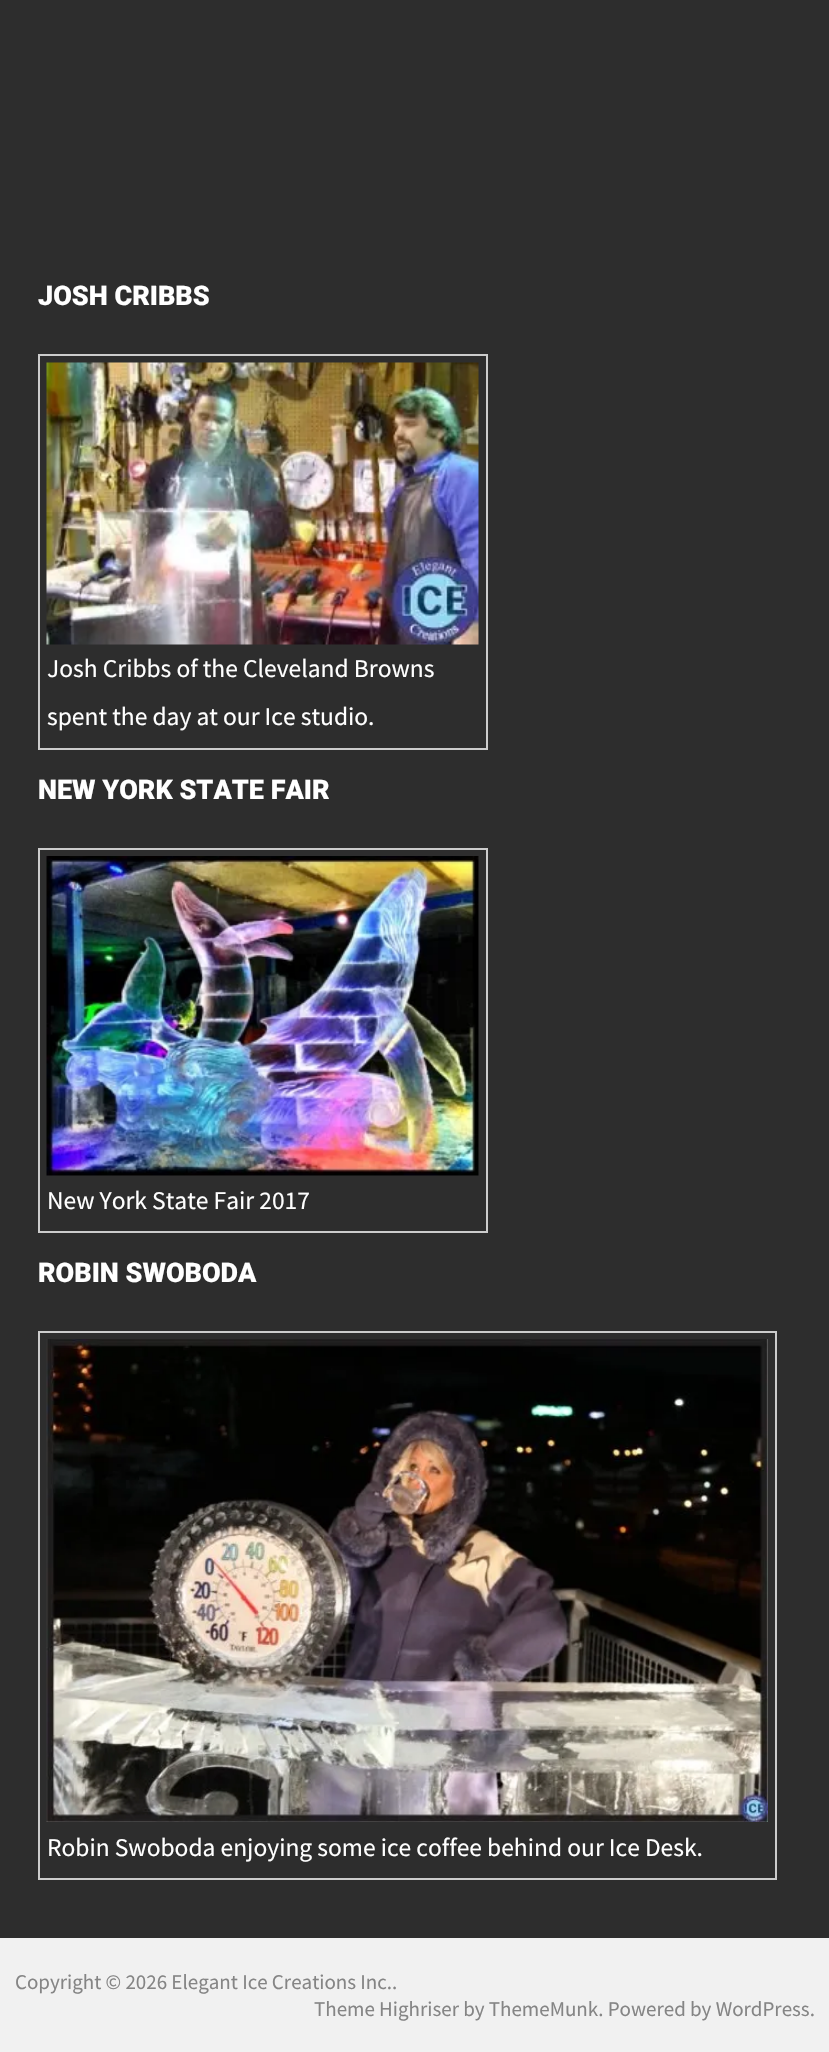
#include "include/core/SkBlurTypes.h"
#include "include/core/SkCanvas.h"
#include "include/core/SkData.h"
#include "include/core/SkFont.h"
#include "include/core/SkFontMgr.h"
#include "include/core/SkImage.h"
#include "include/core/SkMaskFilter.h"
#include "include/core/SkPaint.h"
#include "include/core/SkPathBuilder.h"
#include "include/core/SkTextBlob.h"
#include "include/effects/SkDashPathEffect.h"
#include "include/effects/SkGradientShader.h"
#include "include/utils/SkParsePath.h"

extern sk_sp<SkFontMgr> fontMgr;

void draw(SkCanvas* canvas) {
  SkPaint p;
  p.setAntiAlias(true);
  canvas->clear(SkColorSetRGB(45, 45, 45));
  p.setStyle(SkPaint::kStroke_Style);
  p.setStrokeWidth(2);
  p.setColor(SkColorSetRGB(204, 204, 204));
  canvas->drawRect(SkRect::MakeLTRB(39, 355, 487, 749), p);
  canvas->drawImageRect(SkImages::DeferredFromEncodedData(SkData::MakeFromFileName("images/1.png")), SkRect::MakeLTRB(46, 362, 479, 645), SkSamplingOptions());
  canvas->drawRect(SkRect::MakeLTRB(39, 849, 487, 1232), p);
  canvas->drawImageRect(SkImages::DeferredFromEncodedData(SkData::MakeFromFileName("images/2.png")), SkRect::MakeLTRB(46, 856, 479, 1176), SkSamplingOptions());
  canvas->drawRect(SkRect::MakeLTRB(39, 1332, 776, 1879), p);
  canvas->drawImageRect(SkImages::DeferredFromEncodedData(SkData::MakeFromFileName("images/3.png")), SkRect::MakeLTRB(46, 1339, 768, 1822), SkSamplingOptions());
  p.setStyle(SkPaint::kFill_Style);
  p.setColor(SkColorSetRGB(241, 241, 241));
  canvas->drawRect(SkRect::MakeLTRB(0, 1938, 829, 2052), p);
  SkFont font1(fontMgr->matchFamilyStyle("Roboto", SkFontStyle(900, SkFontStyle::kNormal_Width, SkFontStyle::kUpright_Slant)), 27);
  font1.setSubpixel(true);
  p.setColor(SK_ColorWHITE);
  canvas->drawString("JOSH CRIBBS", 38, 305, font1, p);
  SkFont font2(fontMgr->matchFamilyStyle("Source Sans Pro", SkFontStyle::Normal()), 25.5f);
  font2.setSubpixel(true);
  canvas->drawString("Josh Cribbs of the Cleveland Browns", 47, 677, font2, p);
  canvas->drawString("spent the day at our Ice studio.", 47, 725, font2, p);
  canvas->drawString("NEW YORK STATE FAIR", 38, 799, font1, p);
  canvas->drawString("New York State Fair 2017", 47, 1209, font2, p);
  canvas->drawString("ROBIN SWOBODA", 38, 1282, font1, p);
  canvas->drawString("Robin Swoboda enjoying some ice coffee behind our Ice Desk.", 47, 1856, font2, p);
  SkFont font3(fontMgr->matchFamilyStyle("Source Sans Pro", SkFontStyle::Normal()), 21);
  font3.setSubpixel(true);
  p.setColor(SkColorSetRGB(133, 133, 133));
  canvas->drawString("Copyright © 2026 Elegant Ice Creations Inc..", 15, 1989, font3, p);
  canvas->drawString("Theme Highriser by ThemeMunk. Powered by WordPress.", 314, 2016, font3, p);
}
